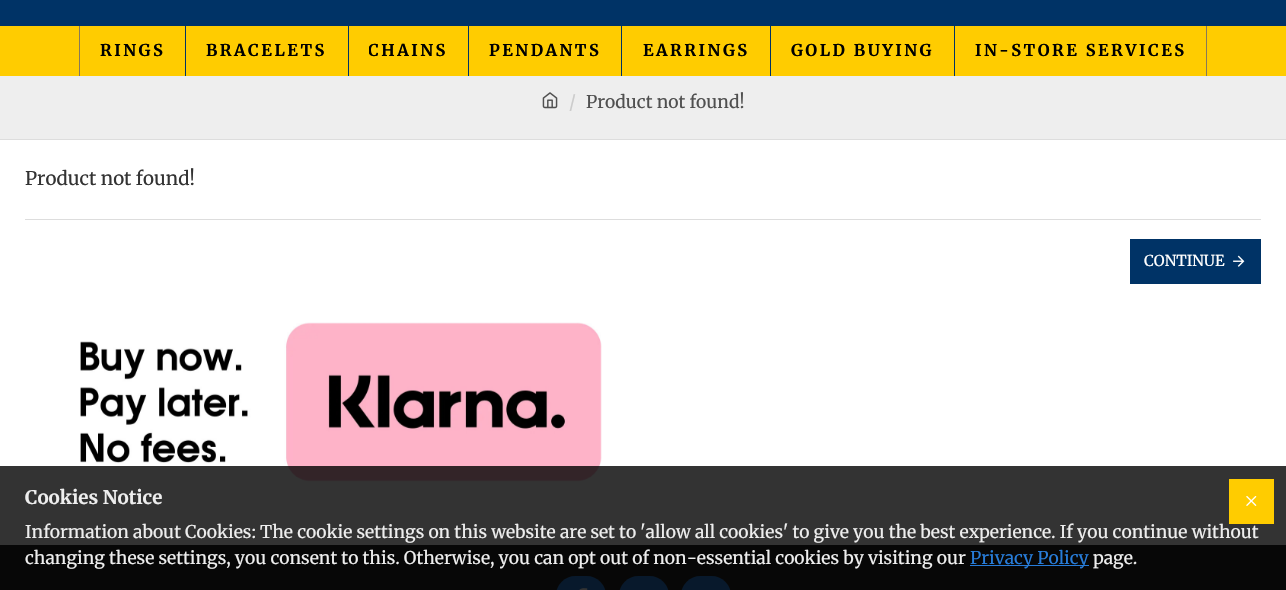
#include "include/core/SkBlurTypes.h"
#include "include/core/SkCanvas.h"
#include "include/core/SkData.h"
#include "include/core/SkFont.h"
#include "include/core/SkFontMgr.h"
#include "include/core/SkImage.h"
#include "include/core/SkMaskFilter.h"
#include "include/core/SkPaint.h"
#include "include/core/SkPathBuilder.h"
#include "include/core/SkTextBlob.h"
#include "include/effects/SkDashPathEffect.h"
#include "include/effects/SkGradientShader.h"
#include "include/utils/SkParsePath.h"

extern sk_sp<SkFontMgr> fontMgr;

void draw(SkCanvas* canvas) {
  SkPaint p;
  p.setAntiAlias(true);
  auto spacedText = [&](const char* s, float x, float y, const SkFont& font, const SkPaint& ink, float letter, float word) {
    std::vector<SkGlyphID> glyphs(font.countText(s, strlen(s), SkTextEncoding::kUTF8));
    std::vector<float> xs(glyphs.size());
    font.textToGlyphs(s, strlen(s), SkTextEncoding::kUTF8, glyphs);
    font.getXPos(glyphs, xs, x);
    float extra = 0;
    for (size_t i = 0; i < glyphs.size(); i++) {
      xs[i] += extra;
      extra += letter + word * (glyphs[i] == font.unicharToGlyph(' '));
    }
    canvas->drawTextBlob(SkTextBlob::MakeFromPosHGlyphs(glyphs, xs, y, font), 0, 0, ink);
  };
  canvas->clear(SK_ColorWHITE);
  p.setColor(SkColorSetRGB(0, 51, 102));
  canvas->drawRect(SkRect::MakeLTRB(0, 0, 1286, 26), p);
  p.setColor(SkColorSetRGB(255, 204, 0));
  canvas->drawRect(SkRect::MakeLTRB(0, 26, 1286, 76), p);
  p.setColor(SkColorSetRGB(135, 121, 89));
  canvas->drawRect(SkRect::MakeLTRB(1206, 26, 1207, 76), p);
  canvas->drawRect(SkRect::MakeLTRB(79, 26, 80, 76), p);
  p.setColor(SkColorSetRGB(0, 51, 102));
  canvas->drawRect(SkRect::MakeLTRB(185, 26, 186, 76), p);
  canvas->drawRect(SkRect::MakeLTRB(348, 26, 349, 76), p);
  canvas->drawRect(SkRect::MakeLTRB(468, 26, 469, 76), p);
  canvas->drawRect(SkRect::MakeLTRB(621, 26, 622, 76), p);
  canvas->drawRect(SkRect::MakeLTRB(770, 26, 771, 76), p);
  canvas->drawRect(SkRect::MakeLTRB(954, 26, 955, 76), p);
  p.setColor(SkColorSetRGB(238, 238, 238));
  canvas->drawRect(SkRect::MakeLTRB(0, 76, 1286, 139), p);
  p.setColor(SkColorSetRGB(221, 221, 221));
  canvas->drawRect(SkRect::MakeLTRB(0, 139, 1286, 140), p);
  canvas->drawImageRect(SkImages::DeferredFromEncodedData(SkData::MakeFromFileName("images/1.png")), SkRect::MakeLTRB(542, 92, 558, 109), SkSamplingOptions());
  canvas->drawRect(SkRect::MakeLTRB(25, 219, 1261, 220), p);
  p.setColor(SkColorSetRGB(0, 51, 102));
  canvas->drawRect(SkRect::MakeLTRB(1130, 239, 1261, 284), p);
  canvas->drawImageRect(SkImages::DeferredFromEncodedData(SkData::MakeFromFileName("images/2.png")), SkRect::MakeLTRB(1233, 255, 1245, 267), SkSamplingOptions());
  canvas->drawImageRect(SkImages::DeferredFromEncodedData(SkData::MakeFromFileName("images/3.png")), SkRect::MakeLTRB(80, 322, 602, 482), SkSamplingOptions());
  p.setColor(SkColorSetRGB(35, 35, 35));
  canvas->drawRect(SkRect::MakeLTRB(0, 545, 1286, 590), p);
  p.setColor(SkColorSetRGB(39, 124, 217));
  canvas->drawRoundRect(SkRect::MakeLTRB(556, 576, 606, 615), 25, 25, p);
  canvas->drawImageRect(SkImages::DeferredFromEncodedData(SkData::MakeFromFileName("images/4.png")), SkRect::MakeLTRB(579, 588, 588, 590), SkSamplingOptions());
  canvas->drawRoundRect(SkRect::MakeLTRB(619, 576, 669, 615), 25, 25, p);
  canvas->drawRoundRect(SkRect::MakeLTRB(681, 576, 731, 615), 25, 25, p);
  p.setColor(SkColorSetARGB(204, 0, 0, 0));
  canvas->drawRect(SkRect::MakeLTRB(0, 466, 1286, 590), p);
  p.setColor(SkColorSetRGB(39, 124, 217));
  canvas->drawRect(SkRect::MakeLTRB(970, 565, 1089, 566), p);
  SkFont font1(fontMgr->matchFamilyStyle("Merriweather", SkFontStyle::Bold()), 16.25f);
  font1.setSubpixel(true);
  p.setColor(SK_ColorBLACK);
  spacedText("RINGS", 100, 56, font1, p, 2.5f, 0);
  spacedText("BRACELETS", 206, 56, font1, p, 2.5f, 0);
  canvas->save();
  canvas->clipRect(SkRect::MakeLTRB(369, 39, 448, 63));
  spacedText("CHAINS", 368, 56, font1, p, 2.5f, 0);
  canvas->restore();
  spacedText("PENDANTS", 489, 56, font1, p, 2.5f, 0);
  spacedText("EARRINGS", 643, 56, font1, p, 2.5f, 0);
  spacedText("GOLD BUYING", 791, 56, font1, p, 2.5f, 0);
  spacedText("IN-STORE SERVICES", 975, 56, font1, p, 2.5f, 0);
  SkFont font2(fontMgr->matchFamilyStyle("Merriweather", SkFontStyle::Normal()), 17.5f);
  font2.setSubpixel(true);
  p.setColor(SkColorSetRGB(204, 204, 204));
  canvas->drawString("/", 569, 108, font2, p);
  p.setColor(SkColorSetRGB(80, 80, 80));
  canvas->drawString("Product not found!", 586, 108, font2, p);
  SkFont font3(fontMgr->matchFamilyStyle("Merriweather", SkFontStyle::Normal()), 18.75f);
  font3.setSubpixel(true);
  p.setColor(SkColorSetRGB(51, 51, 51));
  canvas->drawString("Product not found!", 25, 185, font3, p);
  SkFont font4(fontMgr->matchFamilyStyle("Merriweather", SkFontStyle::Normal()), 15);
  font4.setSubpixel(true);
  p.setColor(SK_ColorWHITE);
  canvas->drawString("CONTINUE", 1144, 266, font4, p);
  SkFont font5(fontMgr->matchFamilyStyle("Merriweather", SkFontStyle::Bold()), 18.75f);
  font5.setSubpixel(true);
  p.setColor(SkColorSetRGB(238, 238, 238));
  canvas->drawString("Cookies Notice", 25, 504, font5, p);
  canvas->drawString("Information about Cookies: The cookie settings on this website are set to 'allow all cookies' to give you the best experience. If you continue without", 25, 538, font2, p);
  p.setColor(SkColorSetRGB(255, 204, 0));
  canvas->drawRect(SkRect::MakeLTRB(1229, 479, 1274, 524), p);
  canvas->drawImageRect(SkImages::DeferredFromEncodedData(SkData::MakeFromFileName("images/5.png")), SkRect::MakeLTRB(1246, 496, 1257, 506), SkSamplingOptions());
  p.setColor(SkColorSetRGB(238, 238, 238));
  canvas->drawString("changing these settings, you consent to this. Otherwise, you can opt out of non-essential cookies by visiting our", 25, 564, font2, p);
  p.setColor(SkColorSetRGB(39, 124, 217));
  canvas->drawString("Privacy Policy", 970, 564, font2, p);
  p.setColor(SkColorSetRGB(238, 238, 238));
  canvas->drawString("page.", 1093, 564, font2, p);
}
